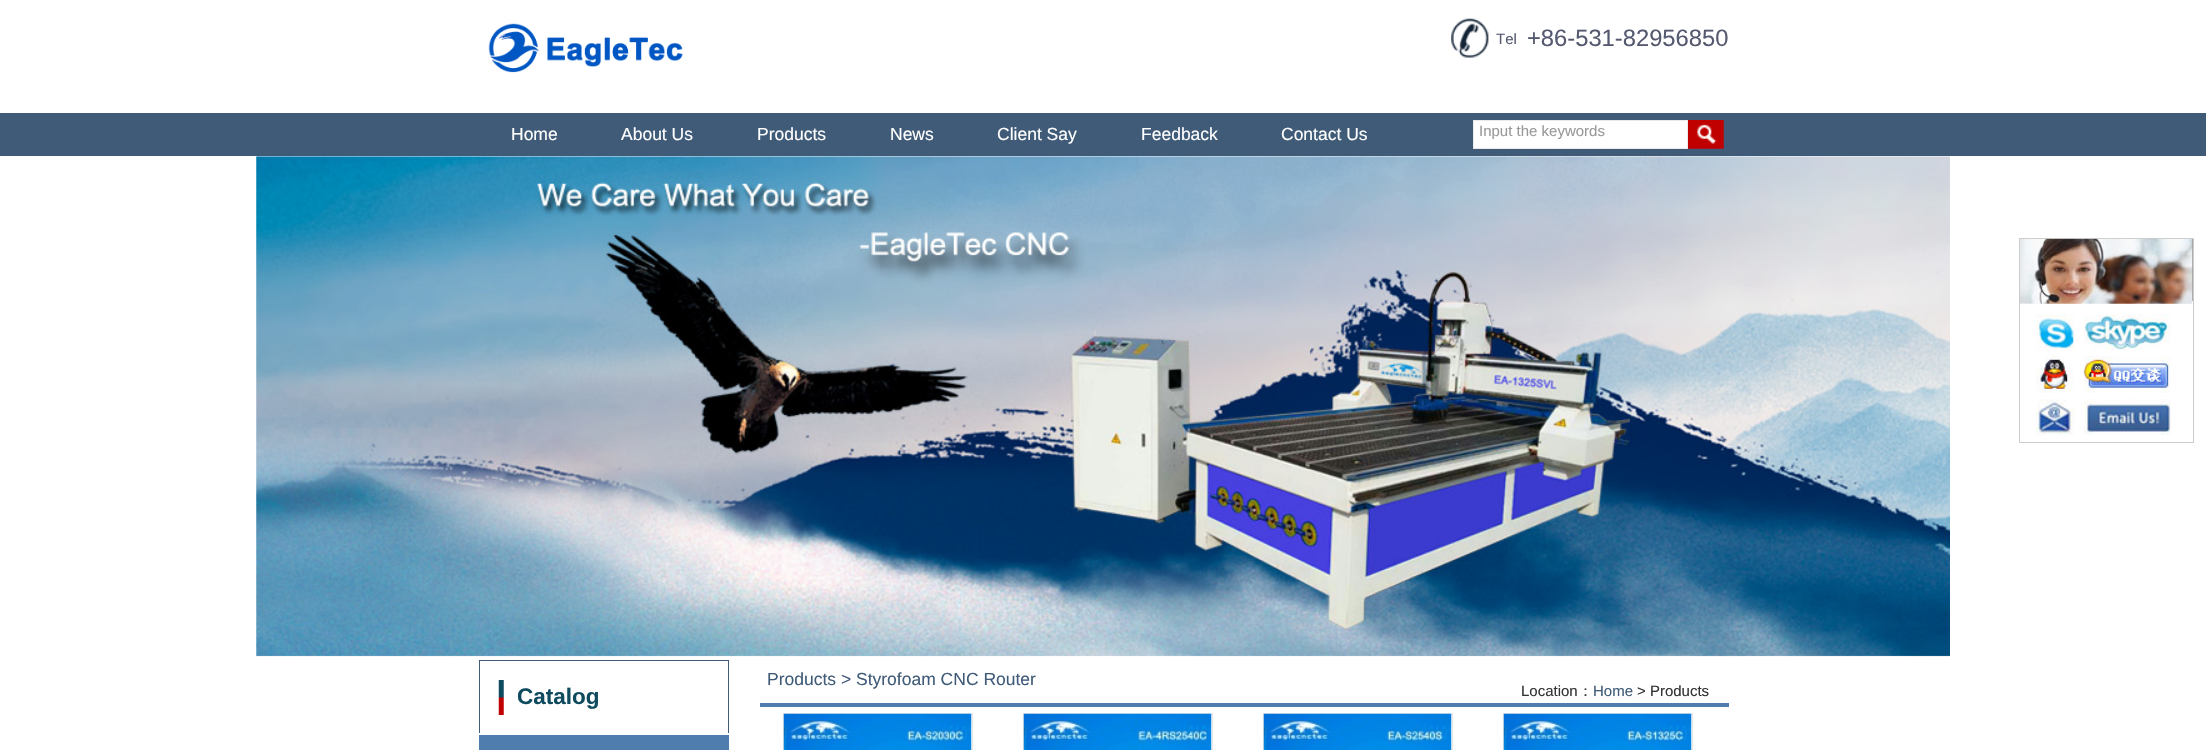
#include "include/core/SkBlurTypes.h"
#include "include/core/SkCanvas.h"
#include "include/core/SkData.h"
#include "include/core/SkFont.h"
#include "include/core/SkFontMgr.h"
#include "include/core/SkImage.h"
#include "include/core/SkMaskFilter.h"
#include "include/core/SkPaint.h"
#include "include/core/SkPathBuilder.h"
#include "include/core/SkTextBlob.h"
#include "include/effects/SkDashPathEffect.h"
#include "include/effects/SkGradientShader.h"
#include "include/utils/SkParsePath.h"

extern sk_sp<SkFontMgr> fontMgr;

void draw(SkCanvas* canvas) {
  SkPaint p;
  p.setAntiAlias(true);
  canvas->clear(SK_ColorWHITE);
  canvas->drawImageRect(SkImages::DeferredFromEncodedData(SkData::MakeFromFileName("images/1.png")), SkRect::MakeLTRB(488, 23, 683, 73), SkSamplingOptions());
  canvas->drawImageRect(SkImages::DeferredFromEncodedData(SkData::MakeFromFileName("images/2.png")), SkRect::MakeLTRB(1451, 18, 1489, 58), SkSamplingOptions());
  p.setColor(SkColorSetRGB(64, 91, 120));
  canvas->drawRect(SkRect::MakeLTRB(0, 113, 2206, 156), p);
  p.setColor(SK_ColorWHITE);
  canvas->drawRect(SkRect::MakeLTRB(1474, 121, 1687, 148), p);
  p.setStyle(SkPaint::kStroke_Style);
  p.setStrokeWidth(1);
  p.setColor(SkColorSetRGB(234, 234, 234));
  canvas->drawRect(SkRect::MakeLTRB(1473.5f, 120.5f, 1687.5f, 148.5f), p);
  canvas->drawImageRect(SkImages::DeferredFromEncodedData(SkData::MakeFromFileName("images/3.png")), SkRect::MakeLTRB(1688, 120, 1724, 149), SkSamplingOptions());
  canvas->drawImageRect(SkImages::DeferredFromEncodedData(SkData::MakeFromFileName("images/4.png")), SkRect::MakeLTRB(256, 156, 1950, 657), SkSamplingOptions());
  p.setColor(SkColorSetRGB(204, 204, 204));
  canvas->drawRect(SkRect::MakeLTRB(2019.5f, 238.5f, 2193.5f, 442.5f), p);
  p.setStyle(SkPaint::kFill_Style);
  p.setColor(SkColorSetRGB(153, 153, 153));
  canvas->drawRect(SkRect::MakeLTRB(2192, 239, 2193, 301), p);
  canvas->drawImageRect(SkImages::DeferredFromEncodedData(SkData::MakeFromFileName("images/5.png")), SkRect::MakeLTRB(2020, 238, 2193, 304), SkSamplingOptions());
  canvas->drawImageRect(SkImages::DeferredFromEncodedData(SkData::MakeFromFileName("images/6.png")), SkRect::MakeLTRB(2036, 314, 2171, 350), SkSamplingOptions());
  canvas->drawImageRect(SkImages::DeferredFromEncodedData(SkData::MakeFromFileName("images/7.png")), SkRect::MakeLTRB(2036, 356, 2171, 393), SkSamplingOptions());
  canvas->drawImageRect(SkImages::DeferredFromEncodedData(SkData::MakeFromFileName("images/8.png")), SkRect::MakeLTRB(2035, 399, 2171, 435), SkSamplingOptions());
  p.setColor(SkColorSetRGB(64, 91, 120));
  canvas->drawRect(SkRect::MakeLTRB(479, 660, 729, 661), p);
  canvas->drawRect(SkRect::MakeLTRB(728, 660, 729, 733), p);
  canvas->drawRect(SkRect::MakeLTRB(479, 660, 480, 733), p);
  canvas->drawImageRect(SkImages::DeferredFromEncodedData(SkData::MakeFromFileName("images/9.png")), SkRect::MakeLTRB(498, 680, 504, 715), SkSamplingOptions());
  p.setColor(SkColorSetRGB(79, 125, 173));
  canvas->drawRect(SkRect::MakeLTRB(479, 735, 729, 750), p);
  canvas->drawRect(SkRect::MakeLTRB(760, 703, 1729, 707), p);
  p.setStyle(SkPaint::kStroke_Style);
  p.setColor(SkColorSetRGB(231, 231, 231));
  canvas->drawRect(SkRect::MakeLTRB(783.5f, 713.5f, 972.5f, 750.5f), p);
  canvas->drawImageRect(SkImages::DeferredFromEncodedData(SkData::MakeFromFileName("images/10.png")), SkRect::MakeLTRB(783, 713, 972, 750), SkSamplingOptions());
  canvas->drawRect(SkRect::MakeLTRB(1023.5f, 713.5f, 1212.5f, 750.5f), p);
  canvas->drawImageRect(SkImages::DeferredFromEncodedData(SkData::MakeFromFileName("images/11.png")), SkRect::MakeLTRB(1023, 713, 1212, 750), SkSamplingOptions());
  canvas->drawRect(SkRect::MakeLTRB(1263.5f, 713.5f, 1452.5f, 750.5f), p);
  canvas->drawImageRect(SkImages::DeferredFromEncodedData(SkData::MakeFromFileName("images/12.png")), SkRect::MakeLTRB(1263, 713, 1452, 750), SkSamplingOptions());
  canvas->drawRect(SkRect::MakeLTRB(1503.5f, 713.5f, 1692.5f, 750.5f), p);
  canvas->drawImageRect(SkImages::DeferredFromEncodedData(SkData::MakeFromFileName("images/13.png")), SkRect::MakeLTRB(1503, 713, 1692, 750), SkSamplingOptions());
  SkFont font1(fontMgr->matchFamilyStyle("Liberation Sans", SkFontStyle::Normal()), 15);
  font1.setSubpixel(true);
  p.setStyle(SkPaint::kFill_Style);
  p.setColor(SkColorSetRGB(84, 89, 111));
  canvas->drawString("Tel", 1496, 44, font1, p);
  SkFont font2(fontMgr->matchFamilyStyle("Liberation Sans", SkFontStyle::Normal()), 23.75f);
  font2.setSubpixel(true);
  canvas->drawString("+86-531-82956850", 1527, 46, font2, p);
  SkFont font3(fontMgr->matchFamilyStyle("Liberation Sans", SkFontStyle::Normal()), 17.5f);
  font3.setSubpixel(true);
  p.setColor(SK_ColorWHITE);
  canvas->drawString("Home", 511, 140, font3, p);
  canvas->drawString("About Us", 621, 140, font3, p);
  canvas->drawString("Products", 757, 140, font3, p);
  canvas->drawString("News", 890, 140, font3, p);
  canvas->drawString("Client Say", 997, 140, font3, p);
  canvas->drawString("Feedback", 1141, 140, font3, p);
  canvas->drawString("Contact Us", 1281, 140, font3, p);
  p.setColor(SkColorSetRGB(153, 153, 153));
  canvas->drawString("Input the keywords", 1479, 136, font1, p);
  SkFont font4(fontMgr->matchFamilyStyle("Liberation Sans", SkFontStyle::Bold()), 22.5f);
  font4.setSubpixel(true);
  p.setColor(SkColorSetRGB(14, 75, 94));
  canvas->drawString("Catalog", 517, 704, font4, p);
  p.setColor(SkColorSetRGB(64, 91, 120));
  canvas->drawString("Products > Styrofoam CNC Router", 767, 685, font3, p);
  p.setColor(SkColorSetRGB(51, 51, 51));
  canvas->drawString("Location", 1521, 696, font1, p);
  SkFont font5(fontMgr->matchFamilyStyle("WenQuanYi Zen Hei", SkFontStyle(500, SkFontStyle::kNormal_Width, SkFontStyle::kUpright_Slant)), 15);
  font5.setSubpixel(true);
  canvas->drawString("：", 1578, 696, font5, p);
  p.setColor(SkColorSetRGB(64, 91, 120));
  canvas->drawString("Home", 1593, 696, font1, p);
  p.setColor(SkColorSetRGB(51, 51, 51));
  canvas->drawString("> Products", 1637, 696, font1, p);
}
